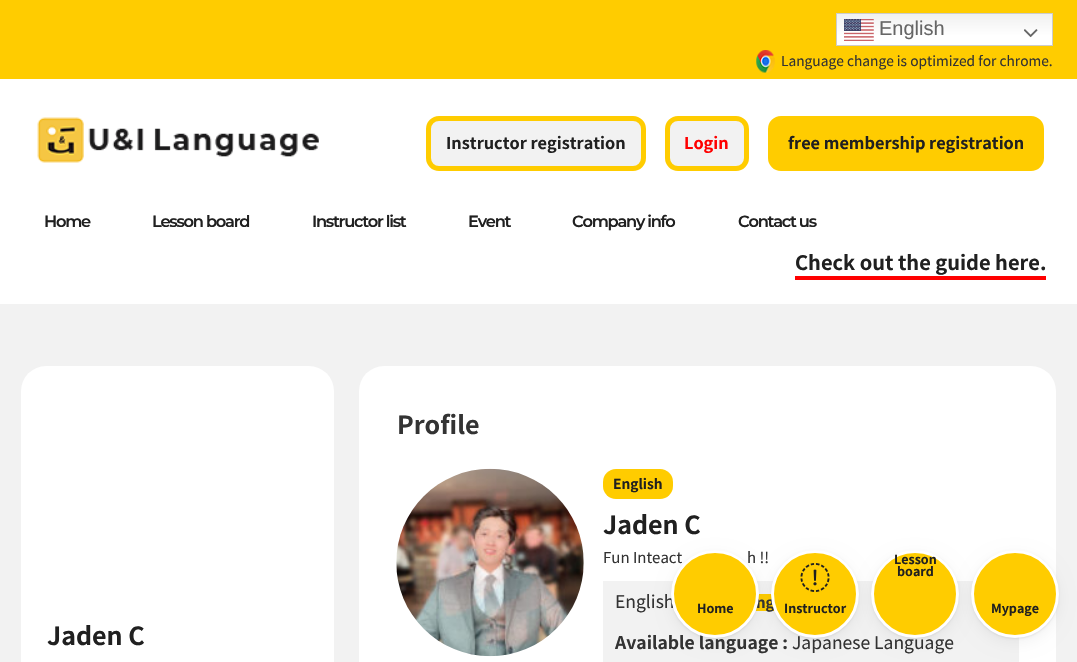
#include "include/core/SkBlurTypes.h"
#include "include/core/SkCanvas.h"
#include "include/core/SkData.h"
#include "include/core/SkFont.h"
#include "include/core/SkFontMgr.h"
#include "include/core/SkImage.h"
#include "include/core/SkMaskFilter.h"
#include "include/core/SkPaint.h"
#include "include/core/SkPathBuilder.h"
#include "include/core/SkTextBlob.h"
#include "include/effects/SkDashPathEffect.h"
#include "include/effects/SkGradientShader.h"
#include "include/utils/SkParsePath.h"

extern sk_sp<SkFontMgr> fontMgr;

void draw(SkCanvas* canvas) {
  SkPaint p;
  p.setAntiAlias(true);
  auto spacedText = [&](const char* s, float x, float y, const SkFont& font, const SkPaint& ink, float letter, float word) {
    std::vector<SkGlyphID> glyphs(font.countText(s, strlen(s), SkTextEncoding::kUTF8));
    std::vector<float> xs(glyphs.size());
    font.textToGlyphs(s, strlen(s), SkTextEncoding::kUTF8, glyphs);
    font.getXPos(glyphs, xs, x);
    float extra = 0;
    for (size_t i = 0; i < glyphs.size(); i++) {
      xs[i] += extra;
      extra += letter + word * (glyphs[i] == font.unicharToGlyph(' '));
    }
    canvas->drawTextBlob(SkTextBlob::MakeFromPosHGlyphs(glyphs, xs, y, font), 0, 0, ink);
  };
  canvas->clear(SK_ColorWHITE);
  p.setColor(SkColorSetRGB(255, 204, 0));
  canvas->drawRect(SkRect::MakeLTRB(0, 0, 1077, 79), p);
  {
    const SkColor colors[] = {SkColorSetRGB(239, 239, 239), SK_ColorWHITE};
    const float stops[] = {0, 0.7f};
    const SkPoint ends[] = {{944, 12}, {944, 46}};
    p.setShader(SkGradientShader::MakeLinear(ends, colors, stops, 2, SkTileMode::kClamp));
    p.setAlpha(255);
  }
  canvas->drawRect(SkRect::MakeLTRB(837, 14, 1052, 45), p);
  p.setStyle(SkPaint::kStroke_Style);
  p.setStrokeWidth(1);
  p.setShader(nullptr);
  p.setColor(SkColorSetRGB(204, 204, 204));
  canvas->drawRect(SkRect::MakeLTRB(836.5f, 13.5f, 1052.5f, 45.5f), p);
  canvas->drawImageRect(SkImages::DeferredFromEncodedData(SkData::MakeFromFileName("images/1.png")), SkRect::MakeLTRB(844, 19, 874, 41), SkSamplingOptions());
  canvas->drawImageRect(SkImages::DeferredFromEncodedData(SkData::MakeFromFileName("images/2.png")), SkRect::MakeLTRB(1024, 29, 1038, 38), SkSamplingOptions());
  canvas->drawImageRect(SkImages::DeferredFromEncodedData(SkData::MakeFromFileName("images/3.png")), SkRect::MakeLTRB(756, 50, 775, 73), SkSamplingOptions());
  canvas->drawImageRect(SkImages::DeferredFromEncodedData(SkData::MakeFromFileName("images/4.png")), SkRect::MakeLTRB(37, 117, 319, 163), SkSamplingOptions());
  p.setStyle(SkPaint::kFill_Style);
  p.setColor(SkColorSetRGB(242, 242, 242));
  canvas->drawRoundRect(SkRect::MakeLTRB(428.5f, 118.5f, 643.5f, 168.5f), 10.5f, 10.5f, p);
  p.setStyle(SkPaint::kStroke_Style);
  p.setStrokeWidth(5);
  p.setColor(SkColorSetRGB(255, 204, 0));
  canvas->drawRoundRect(SkRect::MakeLTRB(428.5f, 118.5f, 643.5f, 168.5f), 10.5f, 10.5f, p);
  p.setStyle(SkPaint::kFill_Style);
  p.setColor(SkColorSetRGB(242, 242, 242));
  canvas->drawRoundRect(SkRect::MakeLTRB(667.5f, 118.5f, 746.5f, 168.5f), 10.5f, 10.5f, p);
  p.setStyle(SkPaint::kStroke_Style);
  p.setColor(SkColorSetRGB(255, 204, 0));
  canvas->drawRoundRect(SkRect::MakeLTRB(667.5f, 118.5f, 746.5f, 168.5f), 10.5f, 10.5f, p);
  p.setStyle(SkPaint::kFill_Style);
  canvas->drawRoundRect(SkRect::MakeLTRB(770.5f, 118.5f, 1041.5f, 168.5f), 10.5f, 10.5f, p);
  p.setStyle(SkPaint::kStroke_Style);
  canvas->drawRoundRect(SkRect::MakeLTRB(770.5f, 118.5f, 1041.5f, 168.5f), 10.5f, 10.5f, p);
  p.setStyle(SkPaint::kFill_Style);
  p.setColor(SkColorSetRGB(255, 0, 0));
  canvas->drawRect(SkRect::MakeLTRB(795, 276, 1046, 280), p);
  p.setColor(SkColorSetRGB(242, 242, 242));
  canvas->drawRect(SkRect::MakeLTRB(0, 304, 1077, 662), p);
  p.setColor(SK_ColorWHITE);
  canvas->drawRoundRect(SkRect::MakeLTRB(359, 366, 1056, 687), 25, 25, p);
  p.setColor(SkColorSetRGB(242, 242, 242));
  canvas->drawRect(SkRect::MakeLTRB(603, 581, 981, 621), p);
  canvas->drawRect(SkRect::MakeLTRB(603, 621, 1019, 662), p);
  p.setColor(SkColorSetARGB(20, 0, 0, 0));
  p.setMaskFilter(SkMaskFilter::MakeBlur(kNormal_SkBlurStyle, 1));
  canvas->drawRoundRect(SkRect::MakeLTRB(871, 551, 959, 639), 44, 44, p);
  p.setMaskFilter(nullptr);
  p.setColor(SkColorSetRGB(255, 204, 0));
  canvas->drawRect(SkRect::MakeLTRB(755, 594, 775, 611), p);
  p.setColor(SkColorSetARGB(13, 0, 0, 0));
  p.setMaskFilter(SkMaskFilter::MakeBlur(kNormal_SkBlurStyle, 7.5f));
  canvas->drawRoundRect(SkRect::MakeLTRB(671, 555, 759, 643), 44, 44, p);
  p.setMaskFilter(nullptr);
  p.setColor(SkColorSetARGB(20, 0, 0, 0));
  p.setMaskFilter(SkMaskFilter::MakeBlur(kNormal_SkBlurStyle, 1));
  canvas->drawRoundRect(SkRect::MakeLTRB(671, 551, 759, 639), 44, 44, p);
  p.setMaskFilter(nullptr);
  p.setMaskFilter(SkMaskFilter::MakeBlur(kNormal_SkBlurStyle, 1));
  canvas->drawRoundRect(SkRect::MakeLTRB(771, 551, 859, 639), 44, 44, p);
  p.setMaskFilter(nullptr);
  p.setMaskFilter(SkMaskFilter::MakeBlur(kNormal_SkBlurStyle, 1));
  canvas->drawRoundRect(SkRect::MakeLTRB(971, 551, 1059, 639), 44, 44, p);
  p.setMaskFilter(nullptr);
  p.setColor(SK_ColorWHITE);
  canvas->drawRoundRect(SkRect::MakeLTRB(21, 366, 334, 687), 25, 25, p);
  canvas->drawImageRect(SkImages::DeferredFromEncodedData(SkData::MakeFromFileName("images/6.png")), SkRect::MakeLTRB(396, 468, 584, 657), SkSamplingOptions());
  p.setColor(SkColorSetRGB(255, 204, 0));
  canvas->drawRoundRect(SkRect::MakeLTRB(603, 469, 673, 499), 13, 13, p);
  SkFont font1(fontMgr->matchFamilyStyle("Liberation Sans", SkFontStyle::Normal()), 20);
  font1.setSubpixel(true);
  p.setColor(SkColorSetRGB(102, 102, 102));
  canvas->drawString("English", 879, 35, font1, p);
  SkFont font2(fontMgr->matchFamilyStyle("Noto Sans JP", SkFontStyle::Normal()), 13.75f);
  font2.setSubpixel(true);
  p.setColor(SkColorSetRGB(51, 51, 51));
  canvas->drawString("Language change is optimized for chrome.", 781, 66, font2, p);
  SkFont font3(fontMgr->matchFamilyStyle("Noto Sans JP", SkFontStyle::Bold()), 16.25f);
  font3.setSubpixel(true);
  p.setColor(SkColorSetRGB(32, 32, 32));
  canvas->drawString("Instructor registration", 446, 149, font3, p);
  p.setColor(SkColorSetRGB(255, 0, 0));
  canvas->drawString("Login", 684, 149, font3, p);
  p.setColor(SkColorSetRGB(32, 32, 32));
  canvas->drawString("free membership registration", 788, 149, font3, p);
  SkFont font4(fontMgr->matchFamilyStyle("Montserrat", SkFontStyle(600, SkFontStyle::kNormal_Width, SkFontStyle::kUpright_Slant)), 16.25f);
  font4.setSubpixel(true);
  spacedText("Home", 44, 227, font4, p, -1.25f, 0);
  spacedText("Lesson board", 152, 227, font4, p, -1.25f, 0);
  spacedText("Instructor list", 312, 227, font4, p, -1.25f, 0);
  spacedText("Event", 468, 227, font4, p, -1.25f, 0);
  spacedText("Company info", 572, 227, font4, p, -1.25f, 0);
  spacedText("Contact us", 738, 227, font4, p, -1.25f, 0);
  SkFont font5(fontMgr->matchFamilyStyle("Noto Sans JP", SkFontStyle::Bold()), 20);
  font5.setSubpixel(true);
  canvas->drawString("Check out the guide here.", 795, 270, font5, p);
  SkFont font6(fontMgr->matchFamilyStyle("Noto Sans JP", SkFontStyle::Bold()), 25);
  font6.setSubpixel(true);
  canvas->drawString("Jaden C", 47, 645, font6, p);
  p.setColor(SkColorSetRGB(51, 51, 51));
  canvas->drawString("Profile", 397, 434, font6, p);
  SkFont font7(fontMgr->matchFamilyStyle("Noto Sans JP", SkFontStyle::Bold()), 13.75f);
  font7.setSubpixel(true);
  p.setColor(SkColorSetRGB(32, 32, 32));
  canvas->drawString("English", 613, 489, font7, p);
  canvas->drawString("Jaden C", 603, 534, font6, p);
  SkFont font8(fontMgr->matchFamilyStyle("Noto Sans JP", SkFontStyle::Normal()), 15);
  font8.setSubpixel(true);
  p.setColor(SkColorSetRGB(51, 51, 51));
  canvas->drawString("Fun Inteact", 603, 563, font8, p);
  canvas->drawString("h !!", 747, 563, font8, p);
  SkFont font9(fontMgr->matchFamilyStyle("Noto Sans JP", SkFontStyle::Normal()), 17.5f);
  font9.setSubpixel(true);
  canvas->drawString("English", 615, 608, font9, p);
  SkFont font10(fontMgr->matchFamilyStyle("Noto Sans JP", SkFontStyle::Bold()), 15);
  font10.setSubpixel(true);
  canvas->drawString("ng", 756, 608, font10, p);
  SkFont font11(fontMgr->matchFamilyStyle("Noto Sans JP", SkFontStyle::Bold()), 17.5f);
  font11.setSubpixel(true);
  canvas->drawString("Available language :", 615, 649, font11, p);
  p.setColor(SkColorSetRGB(255, 204, 0));
  canvas->drawCircle(715, 594, 42.5f, p);
  p.setStyle(SkPaint::kStroke_Style);
  p.setStrokeWidth(3);
  p.setColor(SK_ColorWHITE);
  canvas->drawCircle(715, 594, 42.5f, p);
  p.setStyle(SkPaint::kFill_Style);
  p.setColor(SkColorSetARGB(13, 0, 0, 0));
  p.setMaskFilter(SkMaskFilter::MakeBlur(kNormal_SkBlurStyle, 7.5f));
  canvas->drawRoundRect(SkRect::MakeLTRB(771, 555, 859, 643), 44, 44, p);
  p.setMaskFilter(nullptr);
  SkFont font12(fontMgr->matchFamilyStyle("Noto Sans JP", SkFontStyle::Bold()), 12.5f);
  font12.setSubpixel(true);
  p.setColor(SkColorSetRGB(32, 32, 32));
  canvas->drawString("Home", 697, 613, font12, p);
  p.setColor(SkColorSetRGB(51, 51, 51));
  canvas->drawString("Japanese Language", 792, 649, font9, p);
  p.setColor(SkColorSetRGB(255, 204, 0));
  canvas->drawCircle(815, 594, 42.5f, p);
  p.setStyle(SkPaint::kStroke_Style);
  p.setColor(SK_ColorWHITE);
  canvas->drawCircle(815, 594, 42.5f, p);
  canvas->drawImageRect(SkImages::DeferredFromEncodedData(SkData::MakeFromFileName("images/5.png")), SkRect::MakeLTRB(800, 563, 830, 592), SkSamplingOptions());
  p.setStyle(SkPaint::kFill_Style);
  p.setColor(SkColorSetARGB(13, 0, 0, 0));
  p.setMaskFilter(SkMaskFilter::MakeBlur(kNormal_SkBlurStyle, 7.5f));
  canvas->drawRoundRect(SkRect::MakeLTRB(871, 555, 959, 643), 44, 44, p);
  p.setMaskFilter(nullptr);
  p.setColor(SkColorSetRGB(255, 204, 0));
  canvas->drawCircle(915, 594, 42.5f, p);
  p.setStyle(SkPaint::kStroke_Style);
  p.setColor(SK_ColorWHITE);
  canvas->drawCircle(915, 594, 42.5f, p);
  p.setStyle(SkPaint::kFill_Style);
  p.setColor(SkColorSetARGB(13, 0, 0, 0));
  p.setMaskFilter(SkMaskFilter::MakeBlur(kNormal_SkBlurStyle, 7.5f));
  canvas->drawRoundRect(SkRect::MakeLTRB(971, 555, 1059, 643), 44, 44, p);
  p.setMaskFilter(nullptr);
  p.setColor(SkColorSetRGB(255, 204, 0));
  canvas->drawCircle(1015, 594, 42.5f, p);
  p.setStyle(SkPaint::kStroke_Style);
  p.setColor(SK_ColorWHITE);
  canvas->drawCircle(1015, 594, 42.5f, p);
  p.setStyle(SkPaint::kFill_Style);
  p.setColor(SkColorSetRGB(32, 32, 32));
  canvas->drawString("Mypage", 991, 613, font12, p);
  canvas->drawString("board", 897, 576, font12, p);
  canvas->drawString("Lesson", 894, 564, font12, p);
  canvas->drawString("Instructor", 784, 613, font12, p);
}
